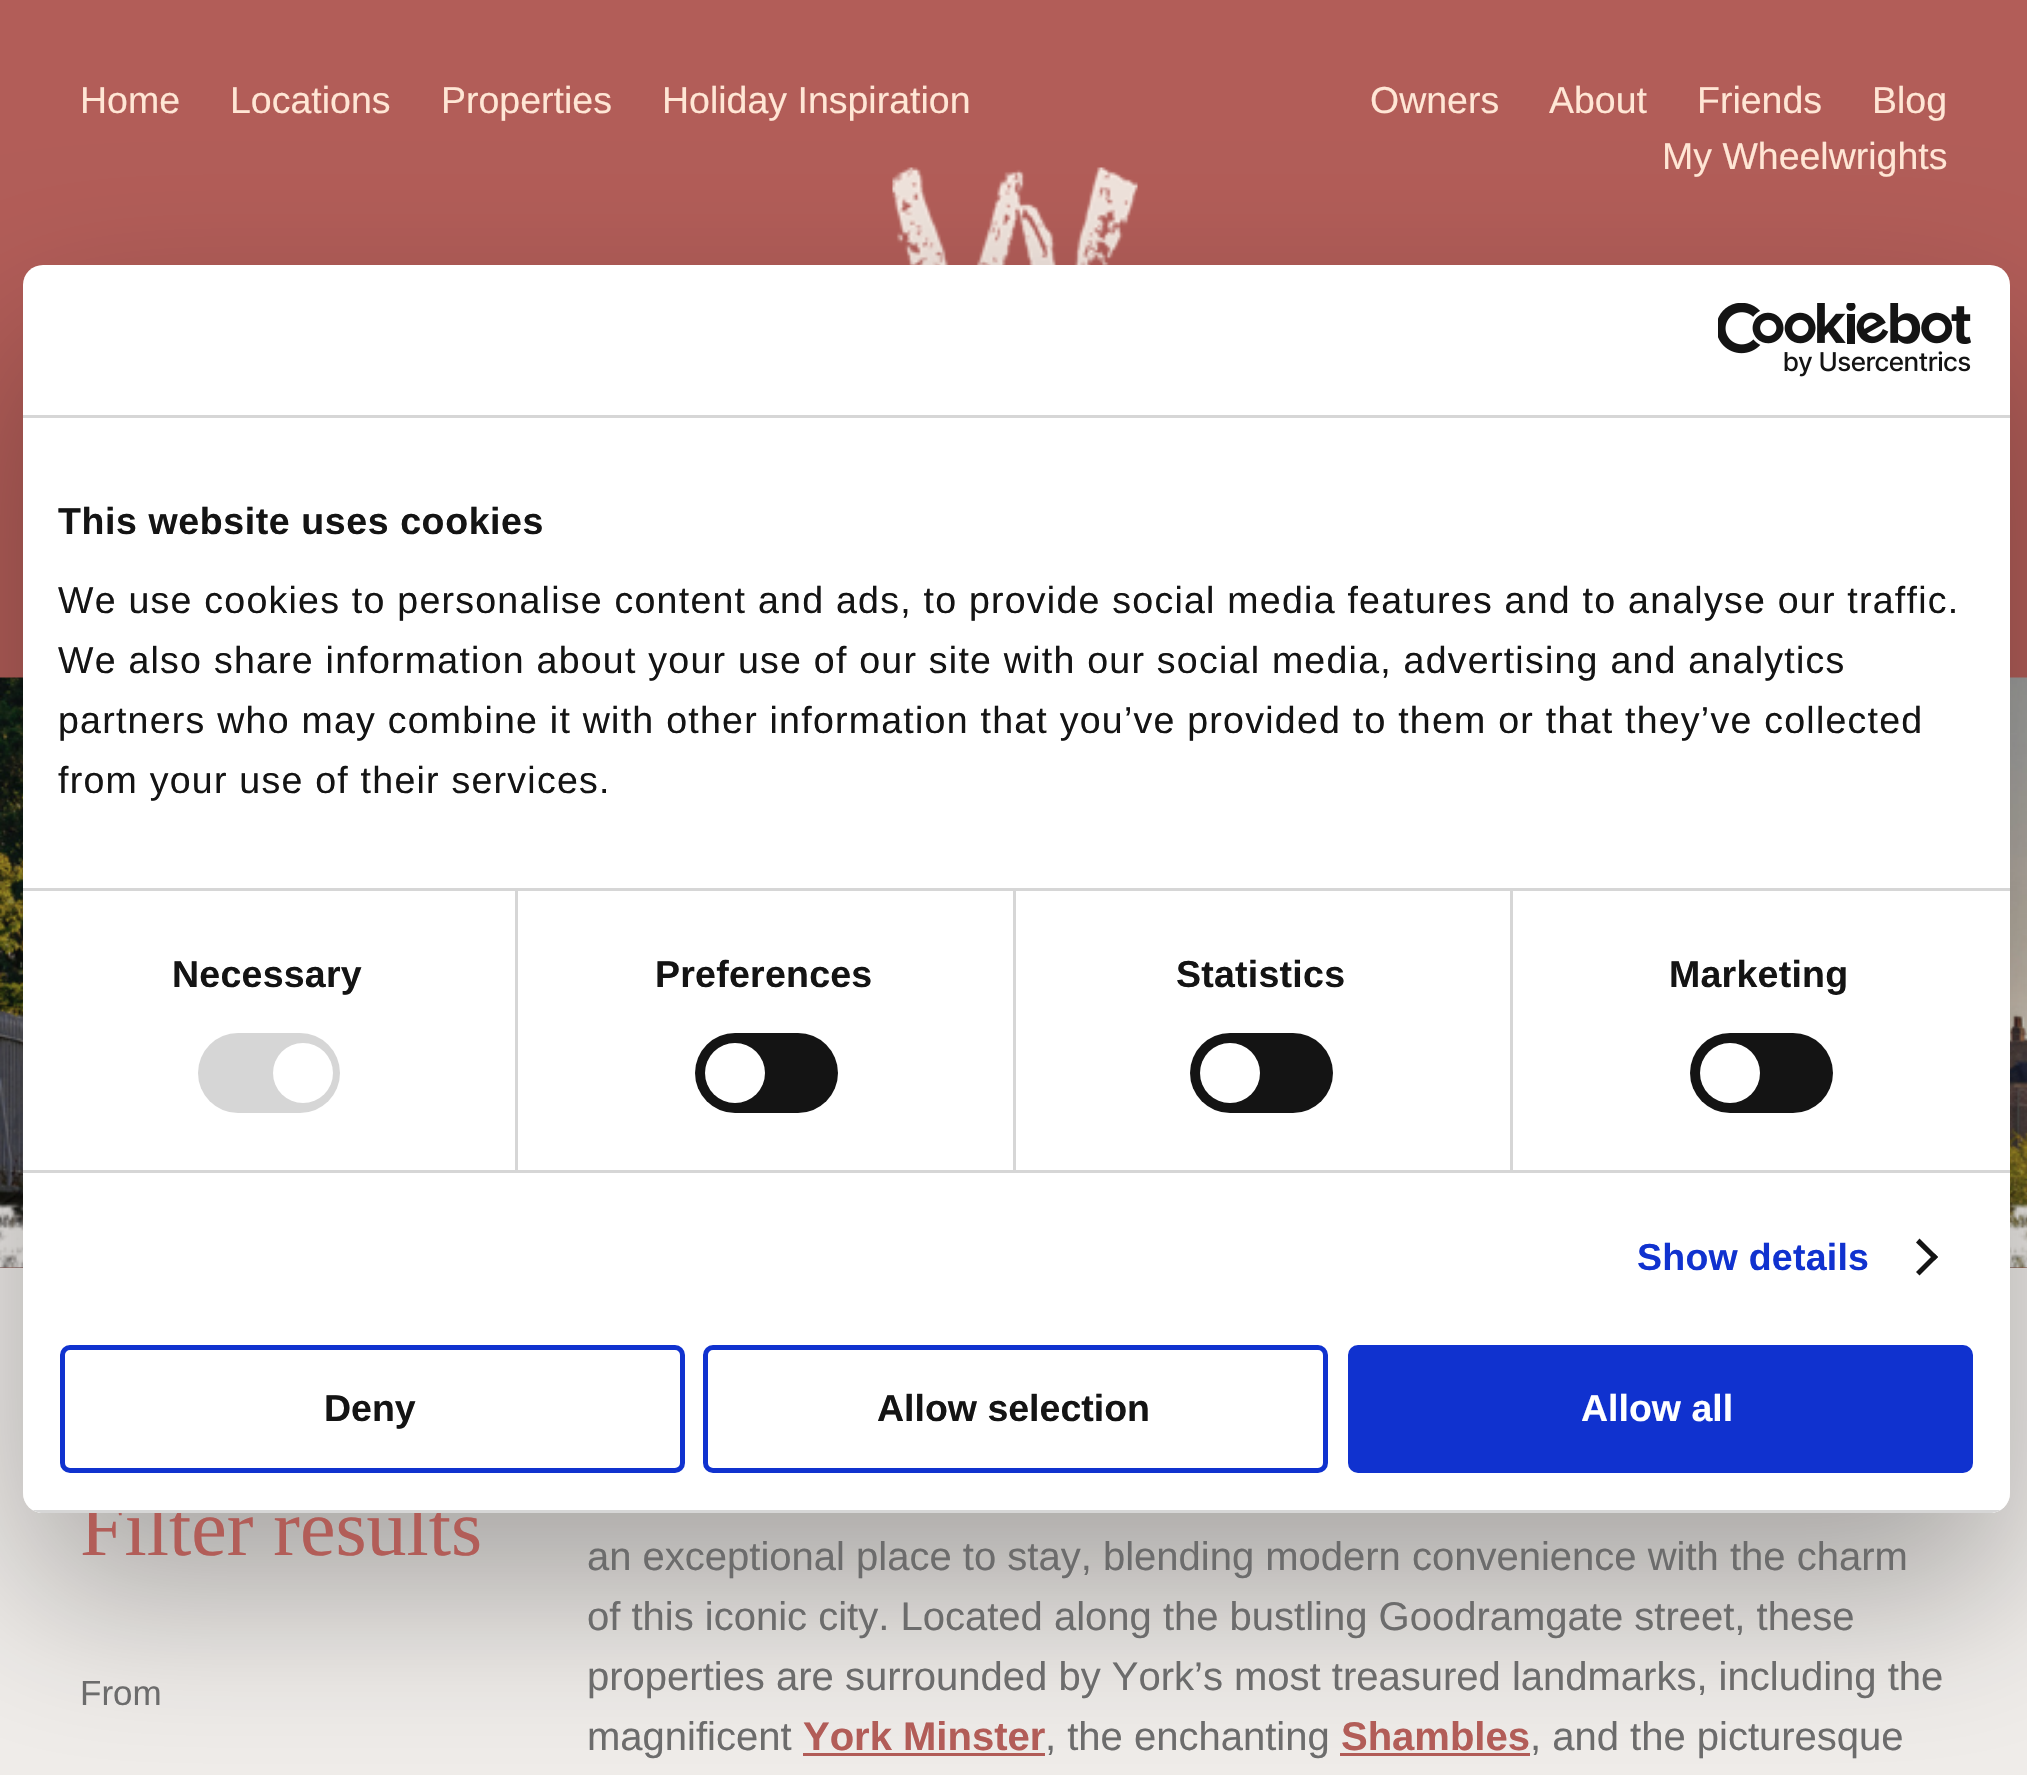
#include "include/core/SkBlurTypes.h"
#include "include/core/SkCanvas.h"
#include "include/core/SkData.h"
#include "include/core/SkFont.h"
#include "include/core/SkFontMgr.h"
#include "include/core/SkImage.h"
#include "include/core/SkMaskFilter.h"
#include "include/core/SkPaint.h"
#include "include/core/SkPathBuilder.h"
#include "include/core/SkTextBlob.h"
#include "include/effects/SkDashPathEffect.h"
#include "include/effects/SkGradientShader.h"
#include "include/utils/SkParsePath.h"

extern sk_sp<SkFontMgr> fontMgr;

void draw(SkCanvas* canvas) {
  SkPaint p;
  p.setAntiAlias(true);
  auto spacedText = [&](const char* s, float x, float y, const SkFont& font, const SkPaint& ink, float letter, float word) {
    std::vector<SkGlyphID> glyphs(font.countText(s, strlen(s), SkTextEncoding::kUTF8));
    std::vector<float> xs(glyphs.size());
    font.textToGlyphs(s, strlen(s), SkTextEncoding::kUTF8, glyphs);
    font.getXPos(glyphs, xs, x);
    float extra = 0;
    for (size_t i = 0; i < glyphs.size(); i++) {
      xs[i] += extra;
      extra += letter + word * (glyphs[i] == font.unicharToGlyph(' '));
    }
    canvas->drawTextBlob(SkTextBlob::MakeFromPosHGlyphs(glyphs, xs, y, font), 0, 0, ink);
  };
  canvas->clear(SkColorSetRGB(240, 237, 234));
  p.setColor(SkColorSetRGB(178, 93, 88));
  canvas->drawRect(SkRect::MakeLTRB(0, 0, 2027, 678), p);
  canvas->drawImageRect(SkImages::DeferredFromEncodedData(SkData::MakeFromFileName("images/1.png")), SkRect::MakeLTRB(892, 167, 1138, 265), SkSamplingOptions());
  canvas->drawRect(SkRect::MakeLTRB(0, 1267, 2027, 1268), p);
  canvas->drawImageRect(SkImages::DeferredFromEncodedData(SkData::MakeFromFileName("images/3.png")), SkRect::MakeLTRB(0, 677, 2027, 1268), SkSamplingOptions());
  canvas->drawImageRect(SkImages::DeferredFromEncodedData(SkData::MakeFromFileName("images/4.png")), SkRect::MakeLTRB(0, 1202, 2027, 1268), SkSamplingOptions());
  canvas->drawRect(SkRect::MakeLTRB(803, 1753, 1045, 1756), p);
  canvas->drawRect(SkRect::MakeLTRB(1340, 1753, 1530, 1756), p);
  canvas->save();
  canvas->clipPath(SkPathBuilder(SkPathFillType::kEvenOdd).moveTo(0, 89).lineTo(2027, 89).lineTo(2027, 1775).lineTo(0, 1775).close().moveTo(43, 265).lineTo(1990, 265).cubicTo(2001, 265, 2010, 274, 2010, 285).lineTo(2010, 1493).cubicTo(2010, 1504, 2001, 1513, 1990, 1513).lineTo(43, 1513).cubicTo(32, 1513, 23, 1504, 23, 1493).lineTo(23, 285).cubicTo(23, 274, 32, 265, 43, 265).close().detach(), true);
  p.setColor(SkColorSetARGB(77, 0, 0, 0));
  p.setMaskFilter(SkMaskFilter::MakeBlur(kNormal_SkBlurStyle, 85));
  canvas->drawRoundRect(SkRect::MakeLTRB(23, 345, 2010, 1593), 20, 20, p);
  p.setMaskFilter(nullptr);
  canvas->restore();
  SkFont font1(fontMgr->matchFamilyStyle("Liberation Sans", SkFontStyle::Normal()), 37.5f);
  font1.setSubpixel(true);
  p.setColor(SkColorSetRGB(255, 230, 213));
  canvas->drawString("Home", 80, 113, font1, p);
  canvas->drawString("Locations", 230, 113, font1, p);
  canvas->drawString("Properties", 441, 113, font1, p);
  canvas->drawString("Holiday Inspiration", 662, 113, font1, p);
  canvas->drawString("Owners", 1370, 113, font1, p);
  canvas->drawString("About", 1549, 113, font1, p);
  canvas->drawString("Friends", 1697, 113, font1, p);
  canvas->drawString("Blog", 1872, 113, font1, p);
  canvas->drawString("My Wheelwrights", 1662, 169, font1, p);
  SkFont font2(fontMgr->matchFamilyStyle("Liberation Serif", SkFontStyle::Normal()), 80);
  font2.setSubpixel(true);
  p.setColor(SkColorSetRGB(178, 93, 88));
  canvas->drawString("Filter results", 80, 1555, font2, p);
  p.setColor(SK_ColorWHITE);
  canvas->drawRoundRect(SkRect::MakeLTRB(23, 265, 2010, 1513), 20, 20, p);
  p.setColor(SkColorSetRGB(16, 50, 207));
  canvas->drawRoundRect(SkRect::MakeLTRB(1350.5f, 1347.5f, 1970.5f, 1470.5f), 7.5f, 7.5f, p);
  p.setStyle(SkPaint::kStroke_Style);
  p.setStrokeWidth(5);
  canvas->drawRoundRect(SkRect::MakeLTRB(1350.5f, 1347.5f, 1970.5f, 1470.5f), 7.5f, 7.5f, p);
  SkFont font3(fontMgr->matchFamilyStyle("Liberation Sans", SkFontStyle::Bold()), 37.5f);
  font3.setSubpixel(true);
  p.setStyle(SkPaint::kFill_Style);
  p.setColor(SK_ColorWHITE);
  canvas->drawString("Allow all", 1581, 1421, font3, p);
  p.setStyle(SkPaint::kStroke_Style);
  p.setColor(SkColorSetRGB(16, 50, 207));
  canvas->drawRoundRect(SkRect::MakeLTRB(705.5f, 1347.5f, 1325.5f, 1470.5f), 7.5f, 7.5f, p);
  p.setStyle(SkPaint::kFill_Style);
  p.setColor(SkColorSetRGB(20, 20, 20));
  canvas->drawString("Allow selection", 877, 1421, font3, p);
  p.setStyle(SkPaint::kStroke_Style);
  p.setColor(SkColorSetRGB(16, 50, 207));
  canvas->drawRoundRect(SkRect::MakeLTRB(62.5f, 1347.5f, 682.5f, 1470.5f), 7.5f, 7.5f, p);
  p.setStyle(SkPaint::kFill_Style);
  p.setColor(SkColorSetRGB(20, 20, 20));
  canvas->drawString("Deny", 324, 1421, font3, p);
  canvas->save();
  canvas->clipPath(SkPathBuilder().moveTo(43, 265).lineTo(1990, 265).cubicTo(2001, 265, 2010, 274, 2010, 285).lineTo(2010, 1493).cubicTo(2010, 1504, 2001, 1513, 1990, 1513).lineTo(43, 1513).cubicTo(32, 1513, 23, 1504, 23, 1493).lineTo(23, 285).cubicTo(23, 274, 32, 265, 43, 265).close().detach(), true);
  p.setColor(SkColorSetRGB(214, 214, 214));
  canvas->drawRect(SkRect::MakeLTRB(32, 1510, 2001, 1513), p);
  canvas->restore();
  p.setColor(SkColorSetRGB(20, 20, 20));
  canvas->drawPath(SkPathBuilder().moveTo(1919.5f, 1238.5f).lineTo(1938, 1257).lineTo(1934.5f, 1260.5f).lineTo(1916, 1242.5f).close().detach(), p);
  canvas->drawPath(SkPathBuilder().moveTo(1934.5f, 1253.5f).lineTo(1938, 1257).lineTo(1919.5f, 1275.5f).lineTo(1916, 1272).close().detach(), p);
  canvas->drawRoundRect(SkRect::MakeLTRB(1690, 1033, 1833, 1113), 40, 40, p);
  p.setColor(SK_ColorWHITE);
  canvas->drawCircle(1730, 1073, 30, p);
  p.setColor(SkColorSetRGB(20, 20, 20));
  canvas->drawRoundRect(SkRect::MakeLTRB(1190, 1033, 1333, 1113), 40, 40, p);
  p.setColor(SK_ColorWHITE);
  canvas->drawCircle(1230, 1073, 30, p);
  p.setColor(SkColorSetRGB(20, 20, 20));
  canvas->drawRoundRect(SkRect::MakeLTRB(695, 1033, 838, 1113), 40, 40, p);
  p.setColor(SK_ColorWHITE);
  canvas->drawCircle(735, 1073, 30, p);
  p.setColor(SkColorSetRGB(214, 214, 214));
  canvas->drawRoundRect(SkRect::MakeLTRB(198, 1033, 340, 1113), 40, 40, p);
  p.setColor(SK_ColorWHITE);
  canvas->drawCircle(303, 1073, 30, p);
  p.setColor(SkColorSetRGB(20, 20, 20));
  spacedText("from your use of their services.", 58, 793, font1, p, 1.25f, 0);
  spacedText("partners who may combine it with other information that you’ve provided to them or that they’ve collected", 58, 733, font1, p, 1.25f, 0);
  spacedText("We also share information about your use of our site with our social media, advertising and analytics", 58, 673, font1, p, 1.25f, 0);
  spacedText("We use cookies to personalise content and ads, to provide social media features and to analyse our traffic.", 58, 613, font1, p, 1.25f, 0);
  spacedText("This website uses cookies", 58, 534, font3, p, 0.6f, 0);
  p.setColor(SkColorSetRGB(214, 214, 214));
  canvas->drawRect(SkRect::MakeLTRB(1510, 890, 1513, 1170), p);
  canvas->drawRect(SkRect::MakeLTRB(1013, 890, 1016, 1170), p);
  canvas->drawRect(SkRect::MakeLTRB(515, 890, 518, 1170), p);
  canvas->drawRect(SkRect::MakeLTRB(23, 888, 2010, 891), p);
  p.setColor(SkColorSetRGB(16, 50, 207));
  spacedText("Show details", 1637, 1270, font3, p, 0.25f, 0);
  p.setColor(SkColorSetRGB(20, 20, 20));
  spacedText("Marketing", 1669, 987, font3, p, 0.25f, 0);
  spacedText("Statistics", 1176, 987, font3, p, 0.25f, 0);
  spacedText("Preferences", 655, 987, font3, p, 0.25f, 0);
  spacedText("Necessary", 172, 987, font3, p, 0.25f, 0);
  p.setColor(SkColorSetRGB(214, 214, 214));
  canvas->drawRect(SkRect::MakeLTRB(23, 1170, 2010, 1173), p);
  canvas->drawImageRect(SkImages::DeferredFromEncodedData(SkData::MakeFromFileName("images/2.png")), SkRect::MakeLTRB(1718, 303, 1971, 377), SkSamplingOptions());
  canvas->drawRect(SkRect::MakeLTRB(23, 415, 2010, 418), p);
  SkFont font4(fontMgr->matchFamilyStyle("Liberation Sans", SkFontStyle::Normal()), 35);
  font4.setSubpixel(true);
  p.setColor(SkColorSetRGB(108, 108, 108));
  canvas->drawString("From", 80, 1705, font4, p);
  SkFont font5(fontMgr->matchFamilyStyle("Liberation Sans", SkFontStyle::Normal()), 40);
  font5.setSubpixel(true);
  canvas->drawString("an exceptional place to stay, blending modern convenience with the charm", 587, 1570, font5, p);
  canvas->drawString("of this iconic city. Located along the bustling Goodramgate street, these", 587, 1630, font5, p);
  canvas->drawString("properties are surrounded by York’s most treasured landmarks, including the", 587, 1690, font5, p);
  canvas->drawString("magnificent", 587, 1750, font5, p);
  SkFont font6(fontMgr->matchFamilyStyle("Liberation Sans", SkFontStyle::Bold()), 40);
  font6.setSubpixel(true);
  p.setColor(SkColorSetRGB(178, 93, 88));
  canvas->drawString("York Minster", 803, 1750, font6, p);
  p.setColor(SkColorSetRGB(108, 108, 108));
  canvas->drawString(", the enchanting", 1045, 1750, font5, p);
  p.setColor(SkColorSetRGB(178, 93, 88));
  canvas->drawString("Shambles", 1341, 1750, font6, p);
  p.setColor(SkColorSetRGB(108, 108, 108));
  canvas->drawString(", and the picturesque", 1530, 1750, font5, p);
}
